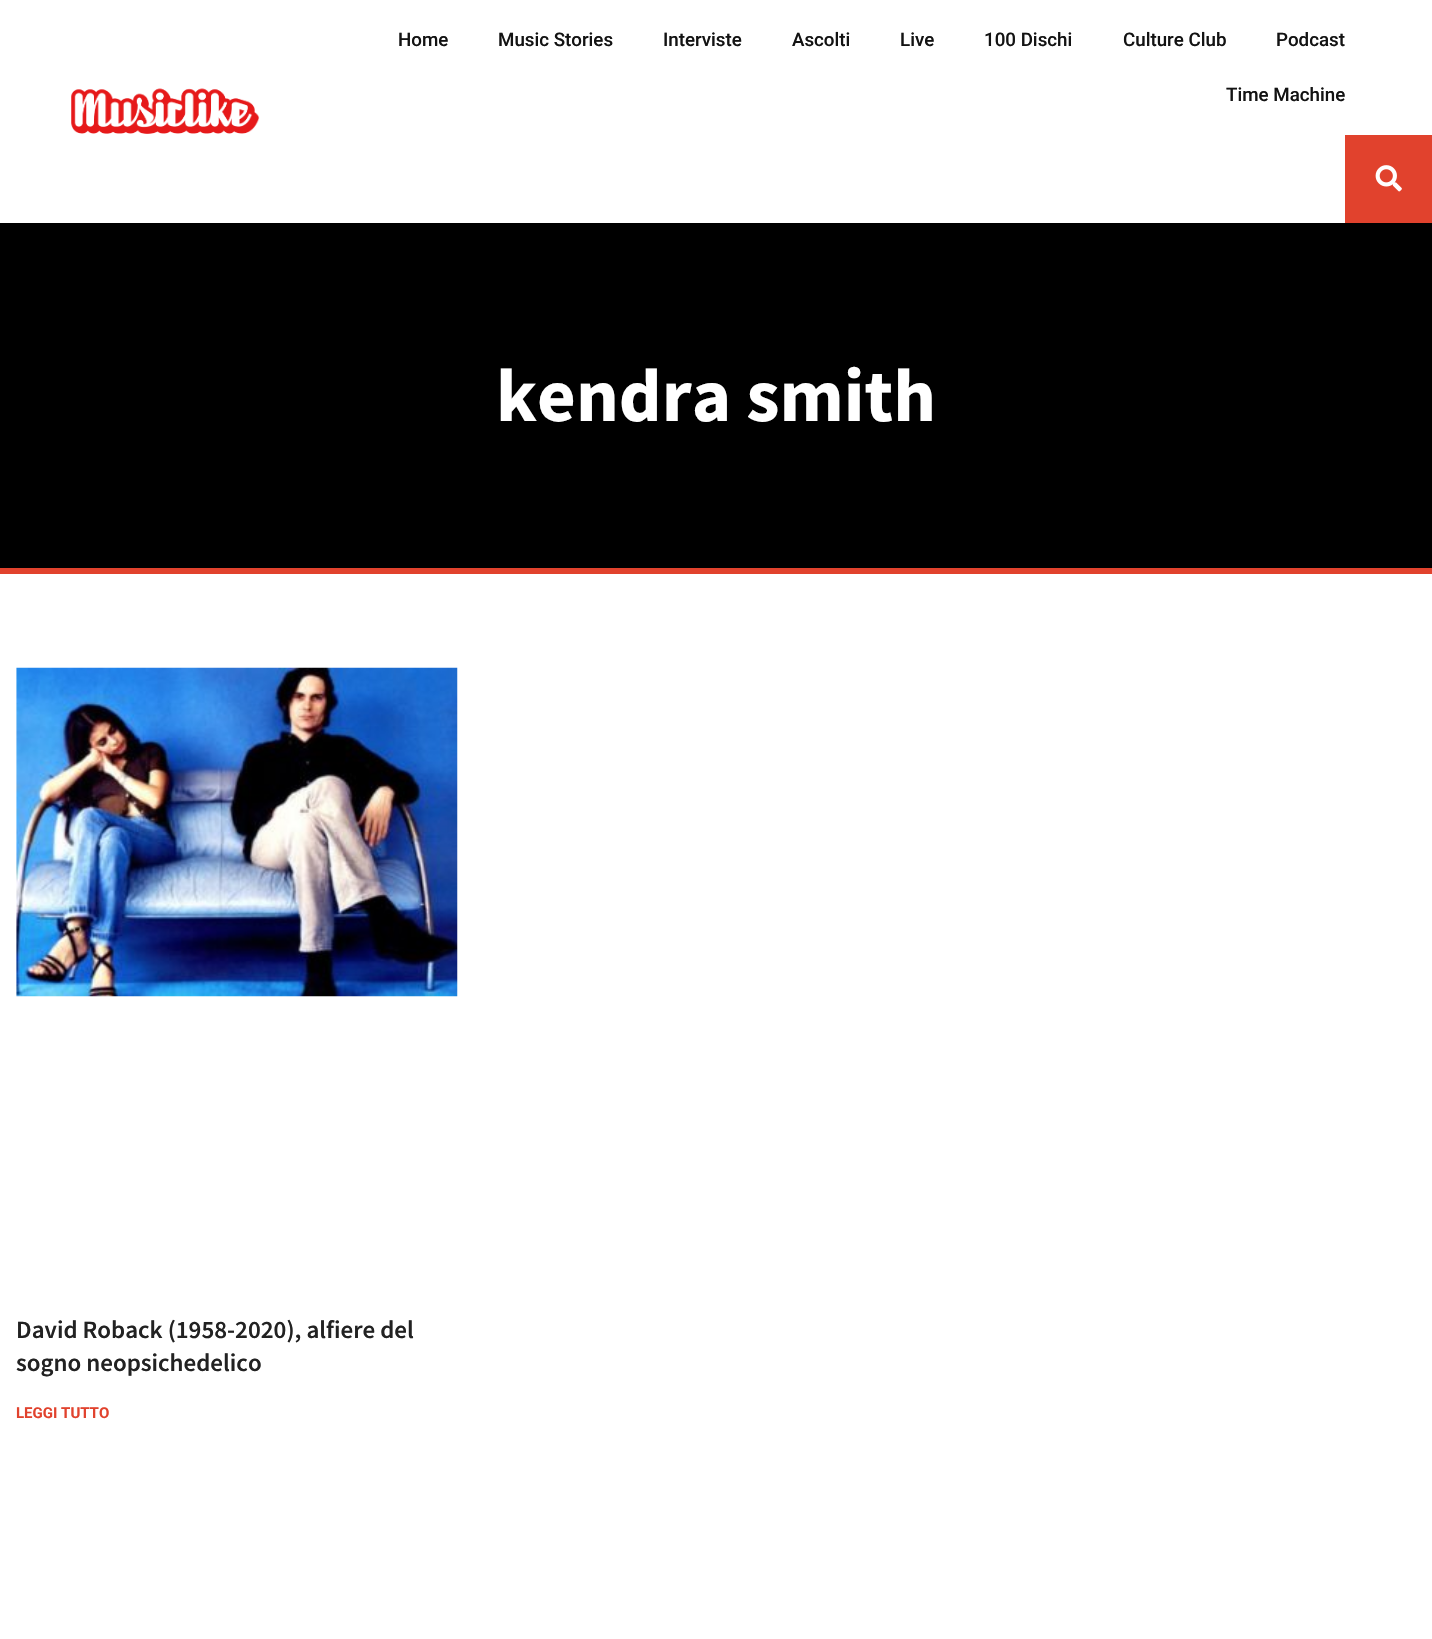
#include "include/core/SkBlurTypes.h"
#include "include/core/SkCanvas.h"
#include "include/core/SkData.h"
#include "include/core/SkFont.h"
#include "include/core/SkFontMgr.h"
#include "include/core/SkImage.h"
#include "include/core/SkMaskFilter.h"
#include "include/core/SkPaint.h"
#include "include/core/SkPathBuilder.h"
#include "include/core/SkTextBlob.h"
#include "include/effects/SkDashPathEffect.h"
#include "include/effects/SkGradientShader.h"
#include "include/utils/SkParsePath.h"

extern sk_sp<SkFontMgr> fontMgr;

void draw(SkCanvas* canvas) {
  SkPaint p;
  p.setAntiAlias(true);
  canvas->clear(SK_ColorWHITE);
  p.setColor(SK_ColorBLACK);
  canvas->drawRect(SkRect::MakeLTRB(0, 223, 1432, 568), p);
  p.setMaskFilter(SkMaskFilter::MakeBlur(kNormal_SkBlurStyle, 35.5f));
  canvas->drawRect(SkRect::MakeLTRB(11, 6, 1421, 206), p);
  p.setMaskFilter(nullptr);
  p.setColor(SK_ColorWHITE);
  canvas->drawRect(SkRect::MakeLTRB(0, 0, 1432, 223), p);
  p.setColor(SkColorSetRGB(225, 66, 45));
  canvas->drawRect(SkRect::MakeLTRB(1345, 135, 1432, 223), p);
  canvas->drawImageRect(SkImages::DeferredFromEncodedData(SkData::MakeFromFileName("images/1.png")), SkRect::MakeLTRB(1375, 165, 1402, 192), SkSamplingOptions());
  canvas->drawImageRect(SkImages::DeferredFromEncodedData(SkData::MakeFromFileName("images/2.png")), SkRect::MakeLTRB(71, 88, 260, 134), SkSamplingOptions());
  canvas->drawRect(SkRect::MakeLTRB(0, 568, 1432, 574), p);
  canvas->drawImageRect(SkImages::DeferredFromEncodedData(SkData::MakeFromFileName("images/3.png")), SkRect::MakeLTRB(16, 667, 458, 997), SkSamplingOptions());
  SkFont font1(fontMgr->matchFamilyStyle("Roboto", SkFontStyle(500, SkFontStyle::kNormal_Width, SkFontStyle::kUpright_Slant)), 18.75f);
  font1.setSubpixel(true);
  p.setColor(SkColorSetRGB(19, 19, 19));
  canvas->drawString("Home", 398, 46, font1, p);
  canvas->drawString("Music Stories", 498, 46, font1, p);
  canvas->drawString("Interviste", 663, 46, font1, p);
  canvas->drawString("Ascolti", 792, 46, font1, p);
  canvas->drawString("Live", 900, 46, font1, p);
  canvas->drawString("100 Dischi", 984, 46, font1, p);
  canvas->drawString("Culture Club", 1123, 46, font1, p);
  canvas->drawString("Podcast", 1276, 46, font1, p);
  canvas->drawString("Time Machine", 1226, 101, font1, p);
  SkFont font2(fontMgr->matchFamilyStyle("Source Sans Pro", SkFontStyle::Bold()), 75);
  font2.setSubpixel(true);
  p.setColor(SK_ColorWHITE);
  canvas->drawString("kendra smith", 496, 421, font2, p);
  SkFont font3(fontMgr->matchFamilyStyle("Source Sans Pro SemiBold", SkFontStyle(600, SkFontStyle::kNormal_Width, SkFontStyle::kUpright_Slant)), 25);
  font3.setSubpixel(true);
  p.setColor(SkColorSetRGB(34, 34, 34));
  canvas->drawString("David Roback (1958-2020), alfiere del", 16, 1338, font3, p);
  canvas->drawString("sogno neopsichedelico", 16, 1371, font3, p);
  SkFont font4(fontMgr->matchFamilyStyle("Roboto", SkFontStyle::Bold()), 15);
  font4.setSubpixel(true);
  p.setColor(SkColorSetRGB(225, 66, 45));
  canvas->drawString("LEGGI TUTTO", 16, 1418, font4, p);
}
